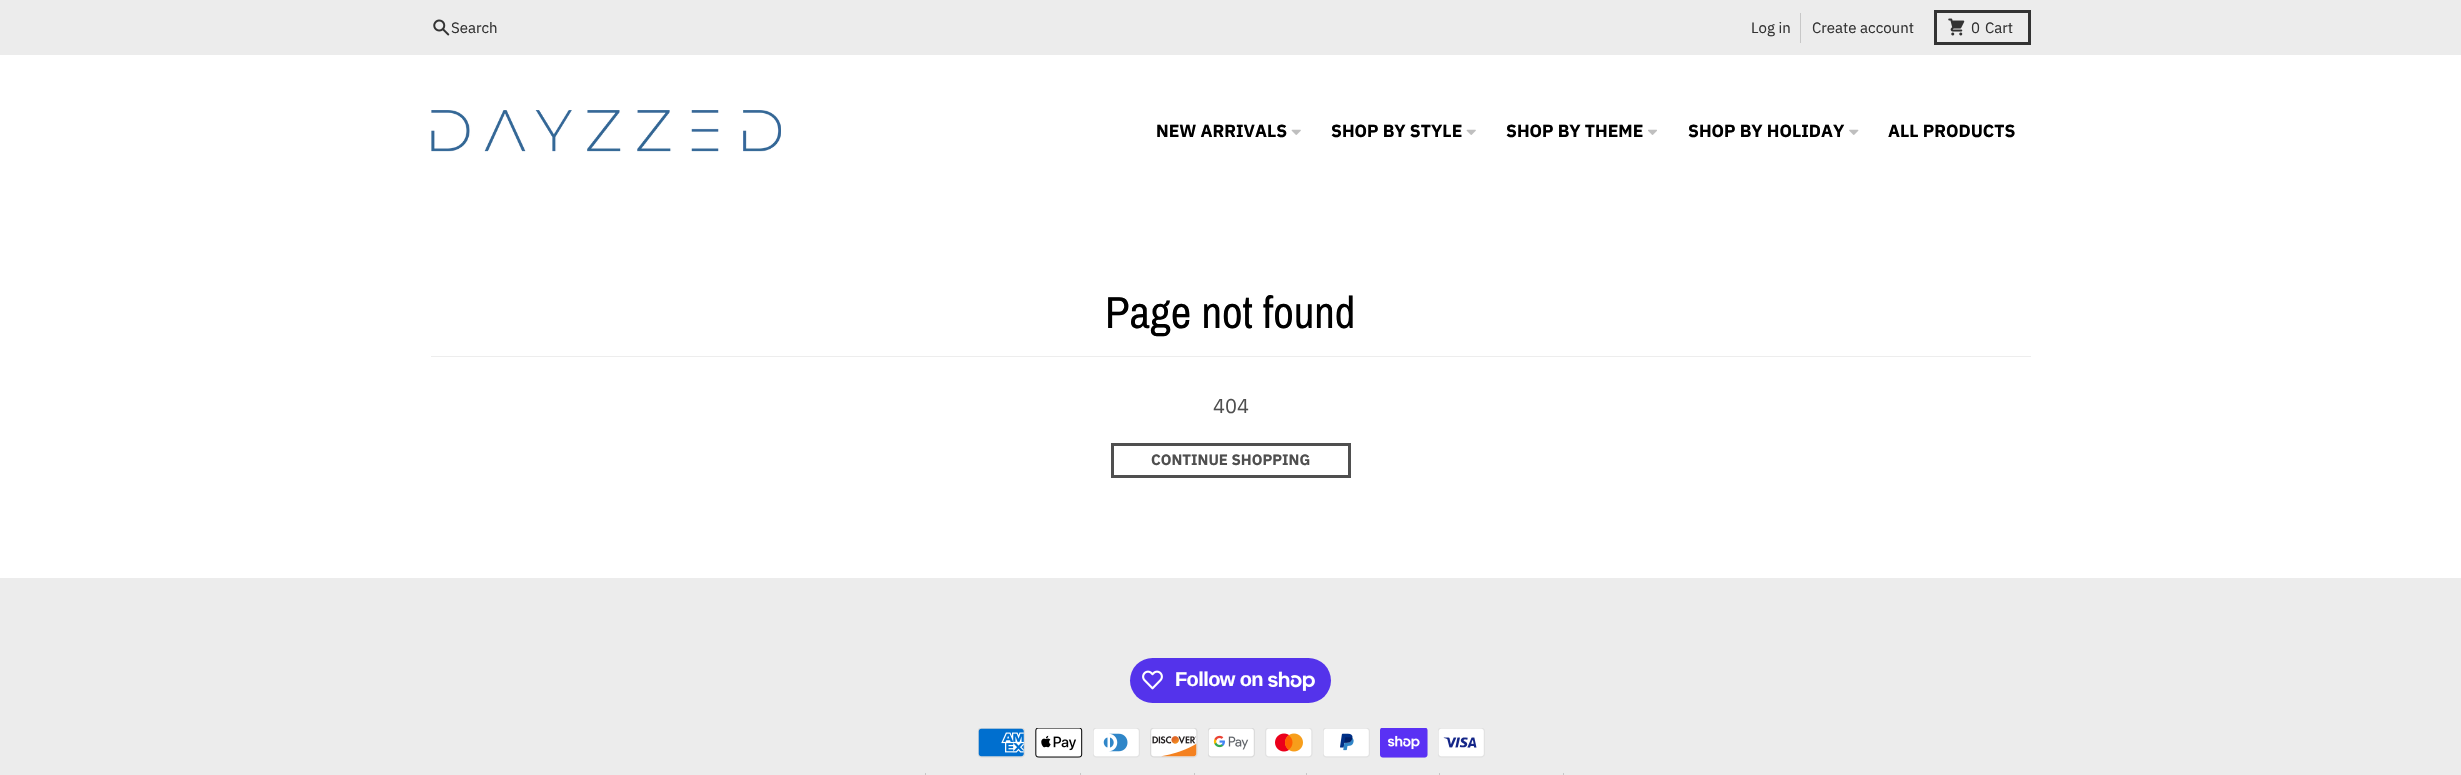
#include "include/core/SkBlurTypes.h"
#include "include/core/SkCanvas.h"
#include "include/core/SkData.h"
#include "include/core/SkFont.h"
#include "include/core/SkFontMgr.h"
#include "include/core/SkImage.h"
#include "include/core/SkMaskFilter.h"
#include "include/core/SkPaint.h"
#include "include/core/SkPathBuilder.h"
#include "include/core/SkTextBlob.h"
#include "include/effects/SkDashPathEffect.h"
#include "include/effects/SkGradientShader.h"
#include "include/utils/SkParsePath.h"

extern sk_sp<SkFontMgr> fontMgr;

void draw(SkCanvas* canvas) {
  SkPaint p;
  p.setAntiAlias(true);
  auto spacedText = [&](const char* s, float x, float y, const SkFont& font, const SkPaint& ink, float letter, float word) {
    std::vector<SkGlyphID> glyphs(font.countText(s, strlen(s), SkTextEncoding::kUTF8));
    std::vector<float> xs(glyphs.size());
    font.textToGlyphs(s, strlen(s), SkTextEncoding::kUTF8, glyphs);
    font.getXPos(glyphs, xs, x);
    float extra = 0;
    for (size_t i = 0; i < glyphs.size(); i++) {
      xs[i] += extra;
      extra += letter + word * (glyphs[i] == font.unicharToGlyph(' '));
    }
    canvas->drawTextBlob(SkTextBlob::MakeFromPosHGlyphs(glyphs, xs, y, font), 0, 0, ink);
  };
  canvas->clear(SkColorSetRGB(236, 236, 236));
  canvas->drawImageRect(SkImages::DeferredFromEncodedData(SkData::MakeFromFileName("images/1.png")), SkRect::MakeLTRB(433, 19, 450, 36), SkSamplingOptions());
  p.setColor(SkColorSetRGB(199, 199, 199));
  canvas->drawRect(SkRect::MakeLTRB(1800, 13, 1801, 43), p);
  p.setStyle(SkPaint::kStroke_Style);
  p.setStrokeWidth(3);
  p.setColor(SkColorSetRGB(51, 51, 51));
  canvas->drawRect(SkRect::MakeLTRB(1935.5f, 11.5f, 2029.5f, 43.5f), p);
  canvas->drawImageRect(SkImages::DeferredFromEncodedData(SkData::MakeFromFileName("images/2.png")), SkRect::MakeLTRB(1948, 18, 1965, 36), SkSamplingOptions());
  p.setStyle(SkPaint::kFill_Style);
  p.setColor(SK_ColorWHITE);
  canvas->drawRect(SkRect::MakeLTRB(0, 55, 2461, 578), p);
  canvas->drawImageRect(SkImages::DeferredFromEncodedData(SkData::MakeFromFileName("images/3.png")), SkRect::MakeLTRB(431, 110, 781, 152), SkSamplingOptions());
  canvas->drawImageRect(SkImages::DeferredFromEncodedData(SkData::MakeFromFileName("images/4.png")), SkRect::MakeLTRB(1291, 129, 1301, 135), SkSamplingOptions());
  canvas->drawImageRect(SkImages::DeferredFromEncodedData(SkData::MakeFromFileName("images/4.png")), SkRect::MakeLTRB(1466, 129, 1476, 135), SkSamplingOptions());
  canvas->drawImageRect(SkImages::DeferredFromEncodedData(SkData::MakeFromFileName("images/5.png")), SkRect::MakeLTRB(1648, 129, 1657, 135), SkSamplingOptions());
  canvas->drawImageRect(SkImages::DeferredFromEncodedData(SkData::MakeFromFileName("images/6.png")), SkRect::MakeLTRB(1849, 129, 1859, 135), SkSamplingOptions());
  p.setColor(SkColorSetRGB(237, 237, 237));
  canvas->drawRect(SkRect::MakeLTRB(431, 356, 2031, 357), p);
  p.setStyle(SkPaint::kStroke_Style);
  p.setColor(SkColorSetRGB(79, 79, 79));
  canvas->drawRect(SkRect::MakeLTRB(1112.5f, 444.5f, 1349.5f, 476.5f), p);
  p.setStyle(SkPaint::kFill_Style);
  p.setColor(SkColorSetRGB(84, 51, 235));
  canvas->drawRoundRect(SkRect::MakeLTRB(1130, 658, 1331, 703), 22.5f, 22.5f, p);
  canvas->drawImageRect(SkImages::DeferredFromEncodedData(SkData::MakeFromFileName("images/7.png")), SkRect::MakeLTRB(1142, 670, 1163, 690), SkSamplingOptions());
  canvas->drawImageRect(SkImages::DeferredFromEncodedData(SkData::MakeFromFileName("images/8.png")), SkRect::MakeLTRB(1268, 671, 1315, 691), SkSamplingOptions());
  canvas->drawImageRect(SkImages::DeferredFromEncodedData(SkData::MakeFromFileName("images/9.png")), SkRect::MakeLTRB(978, 728, 1025, 758), SkSamplingOptions());
  canvas->drawImageRect(SkImages::DeferredFromEncodedData(SkData::MakeFromFileName("images/10.png")), SkRect::MakeLTRB(1035, 728, 1083, 758), SkSamplingOptions());
  canvas->drawImageRect(SkImages::DeferredFromEncodedData(SkData::MakeFromFileName("images/11.png")), SkRect::MakeLTRB(1093, 728, 1140, 758), SkSamplingOptions());
  canvas->drawImageRect(SkImages::DeferredFromEncodedData(SkData::MakeFromFileName("images/12.png")), SkRect::MakeLTRB(1150, 728, 1198, 758), SkSamplingOptions());
  canvas->drawImageRect(SkImages::DeferredFromEncodedData(SkData::MakeFromFileName("images/13.png")), SkRect::MakeLTRB(1208, 728, 1255, 758), SkSamplingOptions());
  canvas->drawImageRect(SkImages::DeferredFromEncodedData(SkData::MakeFromFileName("images/14.png")), SkRect::MakeLTRB(1265, 728, 1313, 758), SkSamplingOptions());
  canvas->drawImageRect(SkImages::DeferredFromEncodedData(SkData::MakeFromFileName("images/15.png")), SkRect::MakeLTRB(1323, 728, 1370, 758), SkSamplingOptions());
  canvas->drawImageRect(SkImages::DeferredFromEncodedData(SkData::MakeFromFileName("images/16.png")), SkRect::MakeLTRB(1380, 728, 1428, 758), SkSamplingOptions());
  canvas->drawImageRect(SkImages::DeferredFromEncodedData(SkData::MakeFromFileName("images/17.png")), SkRect::MakeLTRB(1438, 728, 1485, 758), SkSamplingOptions());
  p.setColor(SkColorSetRGB(199, 199, 199));
  canvas->drawRect(SkRect::MakeLTRB(925, 773, 926, 775), p);
  canvas->drawRect(SkRect::MakeLTRB(1080, 773, 1081, 775), p);
  canvas->drawRect(SkRect::MakeLTRB(1194, 773, 1195, 775), p);
  canvas->drawRect(SkRect::MakeLTRB(1306, 773, 1307, 775), p);
  canvas->drawRect(SkRect::MakeLTRB(1439, 773, 1440, 775), p);
  canvas->drawRect(SkRect::MakeLTRB(1563, 773, 1564, 775), p);
  SkFont font1(fontMgr->matchFamilyStyle("IBM Plex Sans", SkFontStyle::Normal()), 15);
  font1.setSubpixel(true);
  p.setColor(SkColorSetRGB(51, 51, 51));
  canvas->drawString("Search", 451, 33, font1, p);
  canvas->drawString("Log in", 1751, 33, font1, p);
  canvas->drawString("Create account", 1812, 33, font1, p);
  canvas->drawString("0", 1971, 33, font1, p);
  canvas->drawString("Cart", 1985, 33, font1, p);
  SkFont font2(fontMgr->matchFamilyStyle("IBM Plex Sans", SkFontStyle::Bold()), 17.5f);
  font2.setSubpixel(true);
  p.setColor(SK_ColorBLACK);
  canvas->drawString("NEW ARRIVALS", 1156, 137, font2, p);
  canvas->drawString("SHOP BY STYLE", 1331, 137, font2, p);
  canvas->drawString("SHOP BY THEME", 1506, 137, font2, p);
  canvas->drawString("SHOP BY HOLIDAY", 1688, 137, font2, p);
  canvas->drawString("ALL PRODUCTS", 1888, 137, font2, p);
  SkFont font3(fontMgr->matchFamilyStyle("Archivo Narrow", SkFontStyle::Normal()), 45);
  font3.setSubpixel(true);
  canvas->drawString("Page not found", 1105, 328, font3, p);
  SkFont font4(fontMgr->matchFamilyStyle("IBM Plex Sans", SkFontStyle::Normal()), 20);
  font4.setSubpixel(true);
  p.setColor(SkColorSetRGB(79, 79, 79));
  canvas->drawString("404", 1213, 413, font4, p);
  SkFont font5(fontMgr->matchFamilyStyle("IBM Plex Sans", SkFontStyle::Bold()), 15);
  font5.setSubpixel(true);
  canvas->drawString("CONTINUE SHOPPING", 1151, 465, font5, p);
  SkFont font6(fontMgr->matchFamilyStyle("Liberation Sans", SkFontStyle::Bold()), 20);
  font6.setSubpixel(true);
  p.setColor(SK_ColorWHITE);
  spacedText("Follow on", 1175, 686, font6, p, -0.6f, 0);
}
